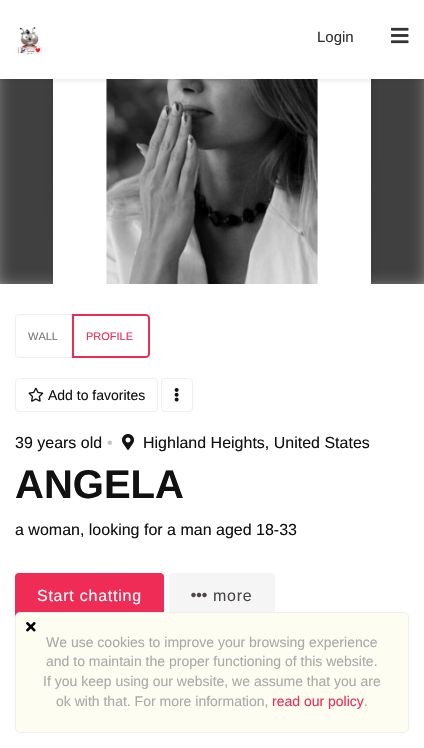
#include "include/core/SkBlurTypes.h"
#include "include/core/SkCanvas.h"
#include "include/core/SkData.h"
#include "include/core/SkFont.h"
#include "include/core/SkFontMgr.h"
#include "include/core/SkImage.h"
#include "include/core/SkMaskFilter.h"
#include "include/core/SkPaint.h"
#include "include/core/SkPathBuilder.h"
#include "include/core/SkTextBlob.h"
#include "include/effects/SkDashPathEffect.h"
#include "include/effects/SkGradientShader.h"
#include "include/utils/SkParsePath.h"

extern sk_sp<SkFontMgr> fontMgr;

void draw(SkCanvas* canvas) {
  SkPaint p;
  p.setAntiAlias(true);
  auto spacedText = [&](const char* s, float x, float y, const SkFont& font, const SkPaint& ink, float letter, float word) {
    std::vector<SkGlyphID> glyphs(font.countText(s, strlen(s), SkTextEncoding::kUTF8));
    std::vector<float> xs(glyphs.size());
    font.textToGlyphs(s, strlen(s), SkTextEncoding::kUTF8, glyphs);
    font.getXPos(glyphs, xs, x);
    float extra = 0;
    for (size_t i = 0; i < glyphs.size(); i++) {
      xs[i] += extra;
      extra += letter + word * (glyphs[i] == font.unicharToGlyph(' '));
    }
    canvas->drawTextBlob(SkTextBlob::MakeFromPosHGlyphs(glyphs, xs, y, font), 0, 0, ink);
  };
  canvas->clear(SK_ColorWHITE);
  canvas->drawImageRect(SkImages::DeferredFromEncodedData(SkData::MakeFromFileName("images/3.png")), SkRect::MakeLTRB(46, 79, 378, 284), SkSamplingOptions());
  canvas->save();
  canvas->clipRect(SkRect::MakeLTRB(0, 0, 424, 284));
  p.setColor(SkColorSetARGB(191, 0, 0, 0));
  p.setMaskFilter(SkMaskFilter::MakeBlur(kNormal_SkBlurStyle, 10));
  canvas->drawRect(SkRect::MakeLTRB(-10, -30, 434, 294), p);
  p.setMaskFilter(nullptr);
  canvas->restore();
  canvas->drawImageRect(SkImages::DeferredFromEncodedData(SkData::MakeFromFileName("images/4.png")), SkRect::MakeLTRB(53, 79, 371, 284), SkSamplingOptions());
  p.setColor(SkColorSetARGB(26, 52, 52, 60));
  p.setMaskFilter(SkMaskFilter::MakeBlur(kNormal_SkBlurStyle, 2));
  canvas->drawRect(SkRect::MakeLTRB(0, 2, 424, 81), p);
  p.setMaskFilter(nullptr);
  p.setColor(SK_ColorWHITE);
  canvas->drawRect(SkRect::MakeLTRB(0, 0, 424, 79), p);
  canvas->drawImageRect(SkImages::DeferredFromEncodedData(SkData::MakeFromFileName("images/1.png")), SkRect::MakeLTRB(17, 27, 42, 55), SkSamplingOptions());
  canvas->drawImageRect(SkImages::DeferredFromEncodedData(SkData::MakeFromFileName("images/2.png")), SkRect::MakeLTRB(391, 27, 409, 44), SkSamplingOptions());
  p.setStyle(SkPaint::kStroke_Style);
  p.setStrokeWidth(1);
  p.setColor(SkColorSetRGB(239, 239, 239));
  canvas->drawPath(SkPathBuilder().moveTo(19, 314.5f).lineTo(72.5f, 314.5f).lineTo(72.5f, 357.5f).lineTo(19, 357.5f).cubicTo(17, 357.5f, 15.5f, 356, 15.5f, 354).lineTo(15.5f, 318).cubicTo(15.5f, 316, 17, 314.5f, 19, 314.5f).close().detach(), p);
  p.setStyle(SkPaint::kFill_Style);
  p.setColor(SkColorSetARGB(242, 255, 255, 255));
  canvas->drawPath(SkPathBuilder().moveTo(73, 315).lineTo(146, 315).cubicTo(147.5f, 315, 149, 316.5f, 149, 318).lineTo(149, 354).cubicTo(149, 355.5f, 147.5f, 357, 146, 357).lineTo(73, 357).close().detach(), p);
  p.setStyle(SkPaint::kStroke_Style);
  p.setStrokeWidth(2);
  p.setColor(SkColorSetRGB(238, 44, 85));
  canvas->drawPath(SkPathBuilder().moveTo(73, 315).lineTo(146, 315).cubicTo(147.5f, 315, 149, 316.5f, 149, 318).lineTo(149, 354).cubicTo(149, 355.5f, 147.5f, 357, 146, 357).lineTo(73, 357).close().detach(), p);
  p.setStrokeWidth(1);
  p.setColor(SkColorSetRGB(239, 239, 239));
  canvas->drawRoundRect(SkRect::MakeLTRB(15.5f, 378.5f, 157.5f, 411.5f), 3.5f, 3.5f, p);
  canvas->drawImageRect(SkImages::DeferredFromEncodedData(SkData::MakeFromFileName("images/5.png")), SkRect::MakeLTRB(28, 387, 44, 402), SkSamplingOptions());
  canvas->drawRoundRect(SkRect::MakeLTRB(161.5f, 378.5f, 192.5f, 411.5f), 3.5f, 3.5f, p);
  canvas->drawImageRect(SkImages::DeferredFromEncodedData(SkData::MakeFromFileName("images/6.png")), SkRect::MakeLTRB(174, 388, 179, 402), SkSamplingOptions());
  canvas->drawImageRect(SkImages::DeferredFromEncodedData(SkData::MakeFromFileName("images/7.png")), SkRect::MakeLTRB(122, 434, 134, 450), SkSamplingOptions());
  p.setStyle(SkPaint::kFill_Style);
  p.setColor(SkColorSetRGB(238, 44, 85));
  canvas->drawRoundRect(SkRect::MakeLTRB(16, 574, 163, 619), 3, 3, p);
  p.setStyle(SkPaint::kStroke_Style);
  p.setStrokeWidth(2);
  canvas->drawRoundRect(SkRect::MakeLTRB(16, 574, 163, 619), 3, 3, p);
  p.setStyle(SkPaint::kFill_Style);
  p.setColor(SkColorSetRGB(245, 245, 245));
  canvas->drawRoundRect(SkRect::MakeLTRB(169, 573, 275, 620), 4, 4, p);
  canvas->drawImageRect(SkImages::DeferredFromEncodedData(SkData::MakeFromFileName("images/8.png")), SkRect::MakeLTRB(191, 592, 207, 598), SkSamplingOptions());
  p.setColor(SkColorSetRGB(253, 253, 241));
  canvas->drawRoundRect(SkRect::MakeLTRB(15.5f, 612.5f, 408.5f, 732.5f), 4.5f, 4.5f, p);
  p.setStyle(SkPaint::kStroke_Style);
  p.setStrokeWidth(1);
  p.setColor(SkColorSetRGB(239, 239, 239));
  canvas->drawRoundRect(SkRect::MakeLTRB(15.5f, 612.5f, 408.5f, 732.5f), 4.5f, 4.5f, p);
  canvas->drawImageRect(SkImages::DeferredFromEncodedData(SkData::MakeFromFileName("images/9.png")), SkRect::MakeLTRB(26, 622, 36, 632), SkSamplingOptions());
  SkFont font1(fontMgr->matchFamilyStyle("Liberation Sans", SkFontStyle::Normal()), 15);
  font1.setSubpixel(true);
  p.setStyle(SkPaint::kFill_Style);
  p.setColor(SkColorSetRGB(51, 51, 51));
  canvas->drawString("Login", 317, 42, font1, p);
  SkFont font2(fontMgr->matchFamilyStyle("Liberation Sans", SkFontStyle::Normal()), 11);
  font2.setSubpixel(true);
  p.setColor(SkColorSetRGB(119, 119, 119));
  canvas->drawString("WALL", 28, 340, font2, p);
  p.setColor(SkColorSetRGB(238, 44, 85));
  canvas->drawString("PROFILE", 86, 340, font2, p);
  SkFont font3(fontMgr->matchFamilyStyle("Liberation Sans", SkFontStyle::Normal()), 14);
  font3.setSubpixel(true);
  p.setColor(SkColorSetRGB(17, 17, 17));
  canvas->drawString("Add to favorites", 48, 400, font3, p);
  SkFont font4(fontMgr->matchFamilyStyle("Liberation Sans", SkFontStyle::Normal()), 16);
  font4.setSubpixel(true);
  canvas->drawString("39 years old", 15, 448, font4, p);
  p.setColor(SkColorSetRGB(196, 196, 196));
  canvas->drawString("•", 107, 448, font4, p);
  p.setColor(SkColorSetRGB(17, 17, 17));
  canvas->drawString("Highland Heights, United States", 143, 448, font4, p);
  SkFont font5(fontMgr->matchFamilyStyle("Liberation Sans", SkFontStyle::Bold()), 40);
  font5.setSubpixel(true);
  canvas->drawString("ANGELA", 15, 498, font5, p);
  canvas->drawString("a woman, looking for a man aged 18-33", 15, 535, font4, p);
  p.setColor(SK_ColorWHITE);
  spacedText("Start chatting", 37, 601, font4, p, 0.75f, 0);
  p.setColor(SkColorSetRGB(75, 69, 69));
  spacedText("more", 213, 601, font4, p, 0.75f, 0);
  p.setColor(SkColorSetRGB(170, 170, 170));
  canvas->drawString("We use cookies to improve your browsing experience", 46, 647, font3, p);
  canvas->drawString("and to maintain the proper functioning of this website.", 46, 666, font3, p);
  canvas->drawString("If you keep using our website, we assume that you are", 43, 686, font3, p);
  canvas->drawString("ok with that. For more information,", 56, 706, font3, p);
  p.setColor(SkColorSetRGB(238, 44, 85));
  canvas->drawString("read our policy", 272, 706, font3, p);
  p.setColor(SkColorSetRGB(170, 170, 170));
  canvas->drawString(".", 364, 706, font3, p);
}
